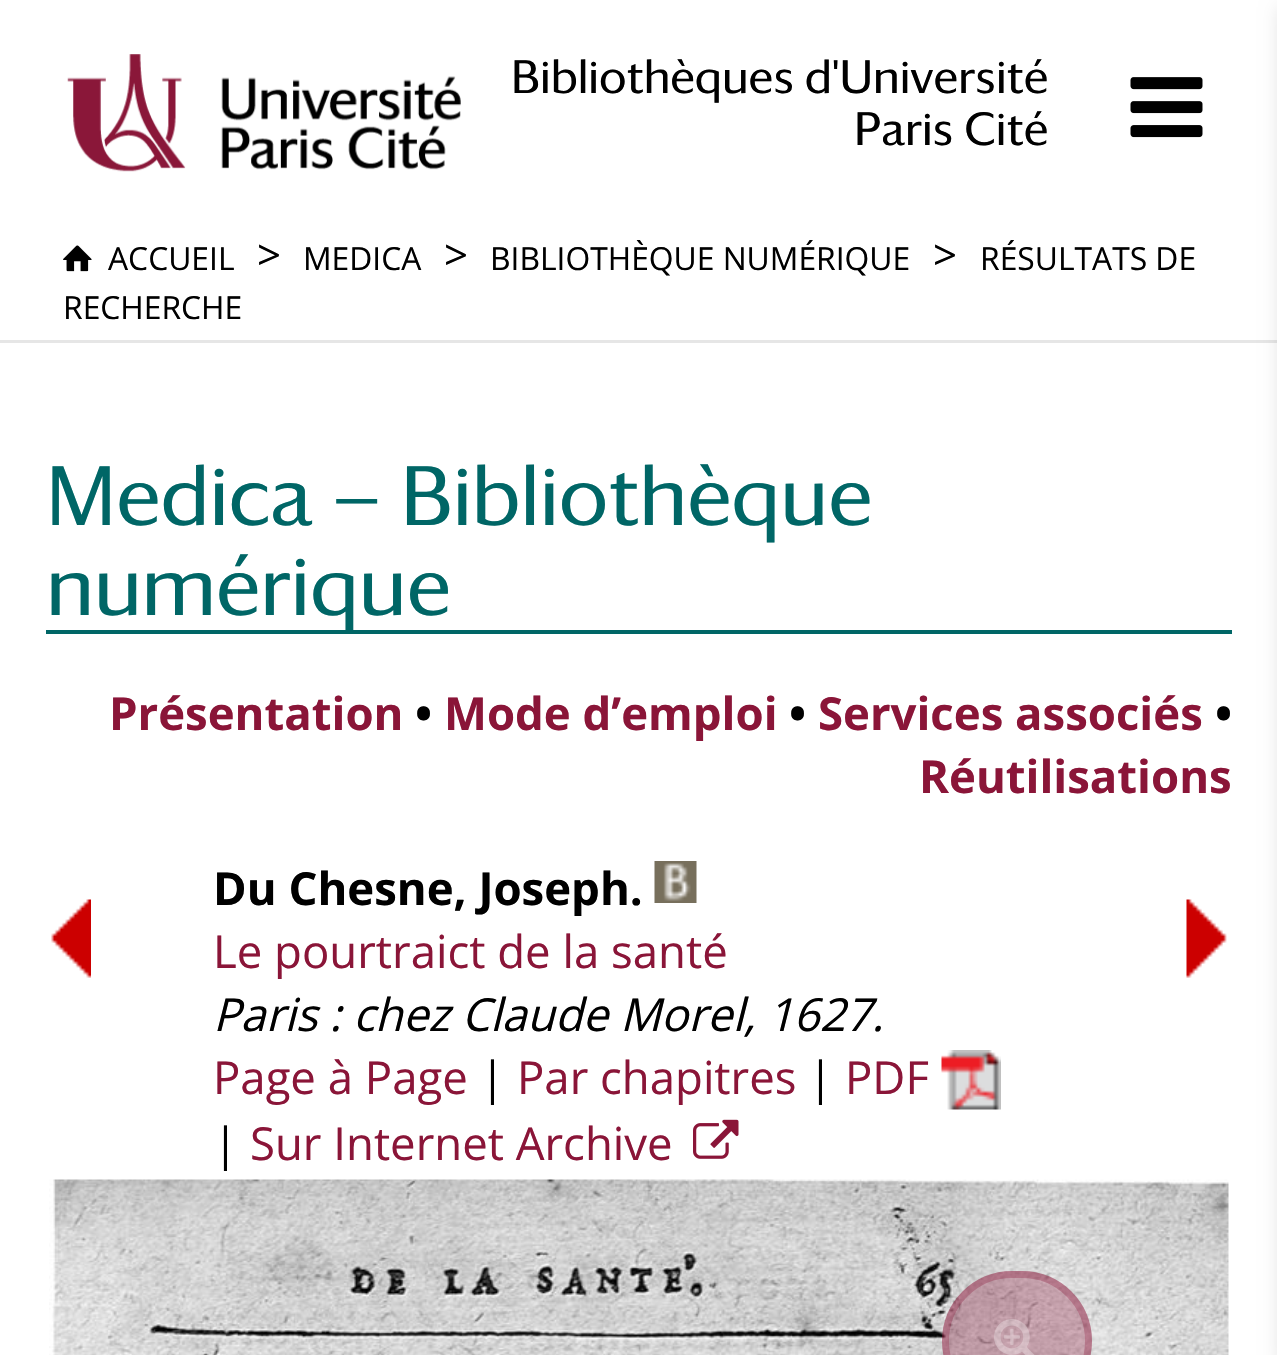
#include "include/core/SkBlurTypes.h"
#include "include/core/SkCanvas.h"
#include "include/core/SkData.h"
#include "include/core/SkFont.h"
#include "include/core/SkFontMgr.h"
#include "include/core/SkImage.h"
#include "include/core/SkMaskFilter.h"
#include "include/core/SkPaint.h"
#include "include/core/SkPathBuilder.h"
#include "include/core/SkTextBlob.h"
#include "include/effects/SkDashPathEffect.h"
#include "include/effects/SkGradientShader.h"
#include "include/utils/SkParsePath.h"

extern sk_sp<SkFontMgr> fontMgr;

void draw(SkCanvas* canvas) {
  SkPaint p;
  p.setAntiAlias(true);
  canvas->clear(SK_ColorWHITE);
  p.setColor(SkColorSetRGB(230, 230, 230));
  canvas->drawPath(SkPathBuilder().moveTo(0, 340).lineTo(0, 343).lineTo(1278, 343).lineTo(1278, 4).lineTo(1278, 340).close().detach(), p);
  canvas->drawImageRect(SkImages::DeferredFromEncodedData(SkData::MakeFromFileName("images/1.png")), SkRect::MakeLTRB(67, 54, 461, 172), SkSamplingOptions());
  canvas->drawImageRect(SkImages::DeferredFromEncodedData(SkData::MakeFromFileName("images/2.png")), SkRect::MakeLTRB(1130, 77, 1203, 138), SkSamplingOptions());
  p.setColor(SkColorSetARGB(26, 0, 0, 0));
  p.setMaskFilter(SkMaskFilter::MakeBlur(kNormal_SkBlurStyle, 9));
  canvas->drawRect(SkRect::MakeLTRB(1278, 7, 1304, 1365), p);
  p.setMaskFilter(nullptr);
  canvas->drawImageRect(SkImages::DeferredFromEncodedData(SkData::MakeFromFileName("images/3.png")), SkRect::MakeLTRB(63, 245, 92, 272), SkSamplingOptions());
  p.setColor(SkColorSetRGB(0, 102, 102));
  canvas->drawRect(SkRect::MakeLTRB(46, 630, 1232, 634), p);
  canvas->drawImageRect(SkImages::DeferredFromEncodedData(SkData::MakeFromFileName("images/4.png")), SkRect::MakeLTRB(51, 899, 91, 978), SkSamplingOptions());
  canvas->drawImageRect(SkImages::DeferredFromEncodedData(SkData::MakeFromFileName("images/5.png")), SkRect::MakeLTRB(654, 861, 697, 903), SkSamplingOptions());
  canvas->drawImageRect(SkImages::DeferredFromEncodedData(SkData::MakeFromFileName("images/6.png")), SkRect::MakeLTRB(941, 1050, 1001, 1110), SkSamplingOptions());
  canvas->drawImageRect(SkImages::DeferredFromEncodedData(SkData::MakeFromFileName("images/7.png")), SkRect::MakeLTRB(693, 1119, 739, 1159), SkSamplingOptions());
  canvas->drawImageRect(SkImages::DeferredFromEncodedData(SkData::MakeFromFileName("images/8.png")), SkRect::MakeLTRB(1186, 899, 1227, 978), SkSamplingOptions());
  canvas->drawImageRect(SkImages::DeferredFromEncodedData(SkData::MakeFromFileName("images/9.png")), SkRect::MakeLTRB(49, 1179, 1229, 1355), SkSamplingOptions());
  p.setColor(SkColorSetARGB(77, 138, 21, 56));
  canvas->drawRoundRect(SkRect::MakeLTRB(942, 1271, 1092, 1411), 70, 70, p);
  p.setStyle(SkPaint::kStroke_Style);
  p.setStrokeWidth(7);
  canvas->drawRoundRect(SkRect::MakeLTRB(945.5f, 1274.5f, 1088.5f, 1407.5f), 66.5f, 66.5f, p);
  canvas->drawImageRect(SkImages::DeferredFromEncodedData(SkData::MakeFromFileName("images/10.png")), SkRect::MakeLTRB(994, 1319, 1035, 1355), SkSamplingOptions());
  SkFont font1(fontMgr->matchFamilyStyle("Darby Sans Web", SkFontStyle::Normal()), 45.5f);
  font1.setSubpixel(true);
  p.setStyle(SkPaint::kFill_Style);
  p.setColor(SK_ColorBLACK);
  canvas->drawString("Bibliothèques d'Université", 511, 93, font1, p);
  canvas->drawString("Paris Cité", 854, 145, font1, p);
  SkFont font2(fontMgr->matchFamilyStyle("Open Sans", SkFontStyle::Normal()), 31.8f);
  font2.setSubpixel(true);
  canvas->drawString("ACCUEIL", 108, 270, font2, p);
  SkFont font3(fontMgr->matchFamilyStyle("Open Sans", SkFontStyle::Normal()), 42);
  font3.setSubpixel(true);
  canvas->drawString(">", 257, 270, font3, p);
  canvas->drawString("MEDICA", 303, 270, font2, p);
  canvas->drawString(">", 444, 270, font3, p);
  canvas->drawString("BIBLIOTHÈQUE NUMÉRIQUE", 490, 270, font2, p);
  canvas->drawString(">", 933, 270, font3, p);
  canvas->drawString("RÉSULTATS DE", 980, 270, font2, p);
  canvas->drawString("RECHERCHE", 63, 319, font2, p);
  SkFont font4(fontMgr->matchFamilyStyle("Darby Sans Web", SkFontStyle::Normal()), 81.9f);
  font4.setSubpixel(true);
  p.setColor(SkColorSetRGB(0, 102, 102));
  canvas->drawString("Medica — Bibliothèque", 46, 525, font4, p);
  canvas->drawString("numérique", 46, 615, font4, p);
  SkFont font5(fontMgr->matchFamilyStyle("Open Sans", SkFontStyle::Bold()), 45.5f);
  font5.setSubpixel(true);
  p.setColor(SkColorSetRGB(138, 21, 56));
  canvas->drawString("Présentation", 109, 730, font5, p);
  p.setColor(SK_ColorBLACK);
  canvas->drawString("•", 415, 730, font5, p);
  p.setColor(SkColorSetRGB(138, 21, 56));
  canvas->drawString("Mode d’emploi", 444, 730, font5, p);
  p.setColor(SK_ColorBLACK);
  canvas->drawString("•", 789, 730, font5, p);
  p.setColor(SkColorSetRGB(138, 21, 56));
  canvas->drawString("Services associés", 818, 730, font5, p);
  p.setColor(SK_ColorBLACK);
  canvas->drawString("•", 1215, 730, font5, p);
  p.setColor(SkColorSetRGB(138, 21, 56));
  canvas->drawString("Réutilisations", 919, 793, font5, p);
  p.setColor(SK_ColorBLACK);
  canvas->drawString("Du Chesne, Joseph.", 213, 905, font5, p);
  SkFont font6(fontMgr->matchFamilyStyle("Open Sans", SkFontStyle::Normal()), 45.5f);
  font6.setSubpixel(true);
  p.setColor(SkColorSetRGB(138, 21, 56));
  canvas->drawString("Le pourtraict de la santé", 213, 968, font6, p);
  SkFont font7(fontMgr->matchFamilyStyle("Open Sans", SkFontStyle::Italic()), 45.5f);
  font7.setSubpixel(true);
  p.setColor(SK_ColorBLACK);
  canvas->drawString("Paris : chez Claude Morel, 1627.", 213, 1031, font7, p);
  p.setColor(SkColorSetRGB(138, 21, 56));
  canvas->drawString("Page à Page", 213, 1094, font6, p);
  p.setColor(SK_ColorBLACK);
  canvas->drawString("|", 480, 1094, font6, p);
  p.setColor(SkColorSetRGB(138, 21, 56));
  canvas->drawString("Par chapitres", 517, 1094, font6, p);
  p.setColor(SK_ColorBLACK);
  canvas->drawString("|", 808, 1094, font6, p);
  p.setColor(SkColorSetRGB(138, 21, 56));
  canvas->drawString("PDF", 845, 1094, font6, p);
  p.setColor(SK_ColorBLACK);
  canvas->drawString("|", 213, 1160, font6, p);
  p.setColor(SkColorSetRGB(138, 21, 56));
  canvas->drawString("Sur Internet Archive", 250, 1160, font6, p);
}
